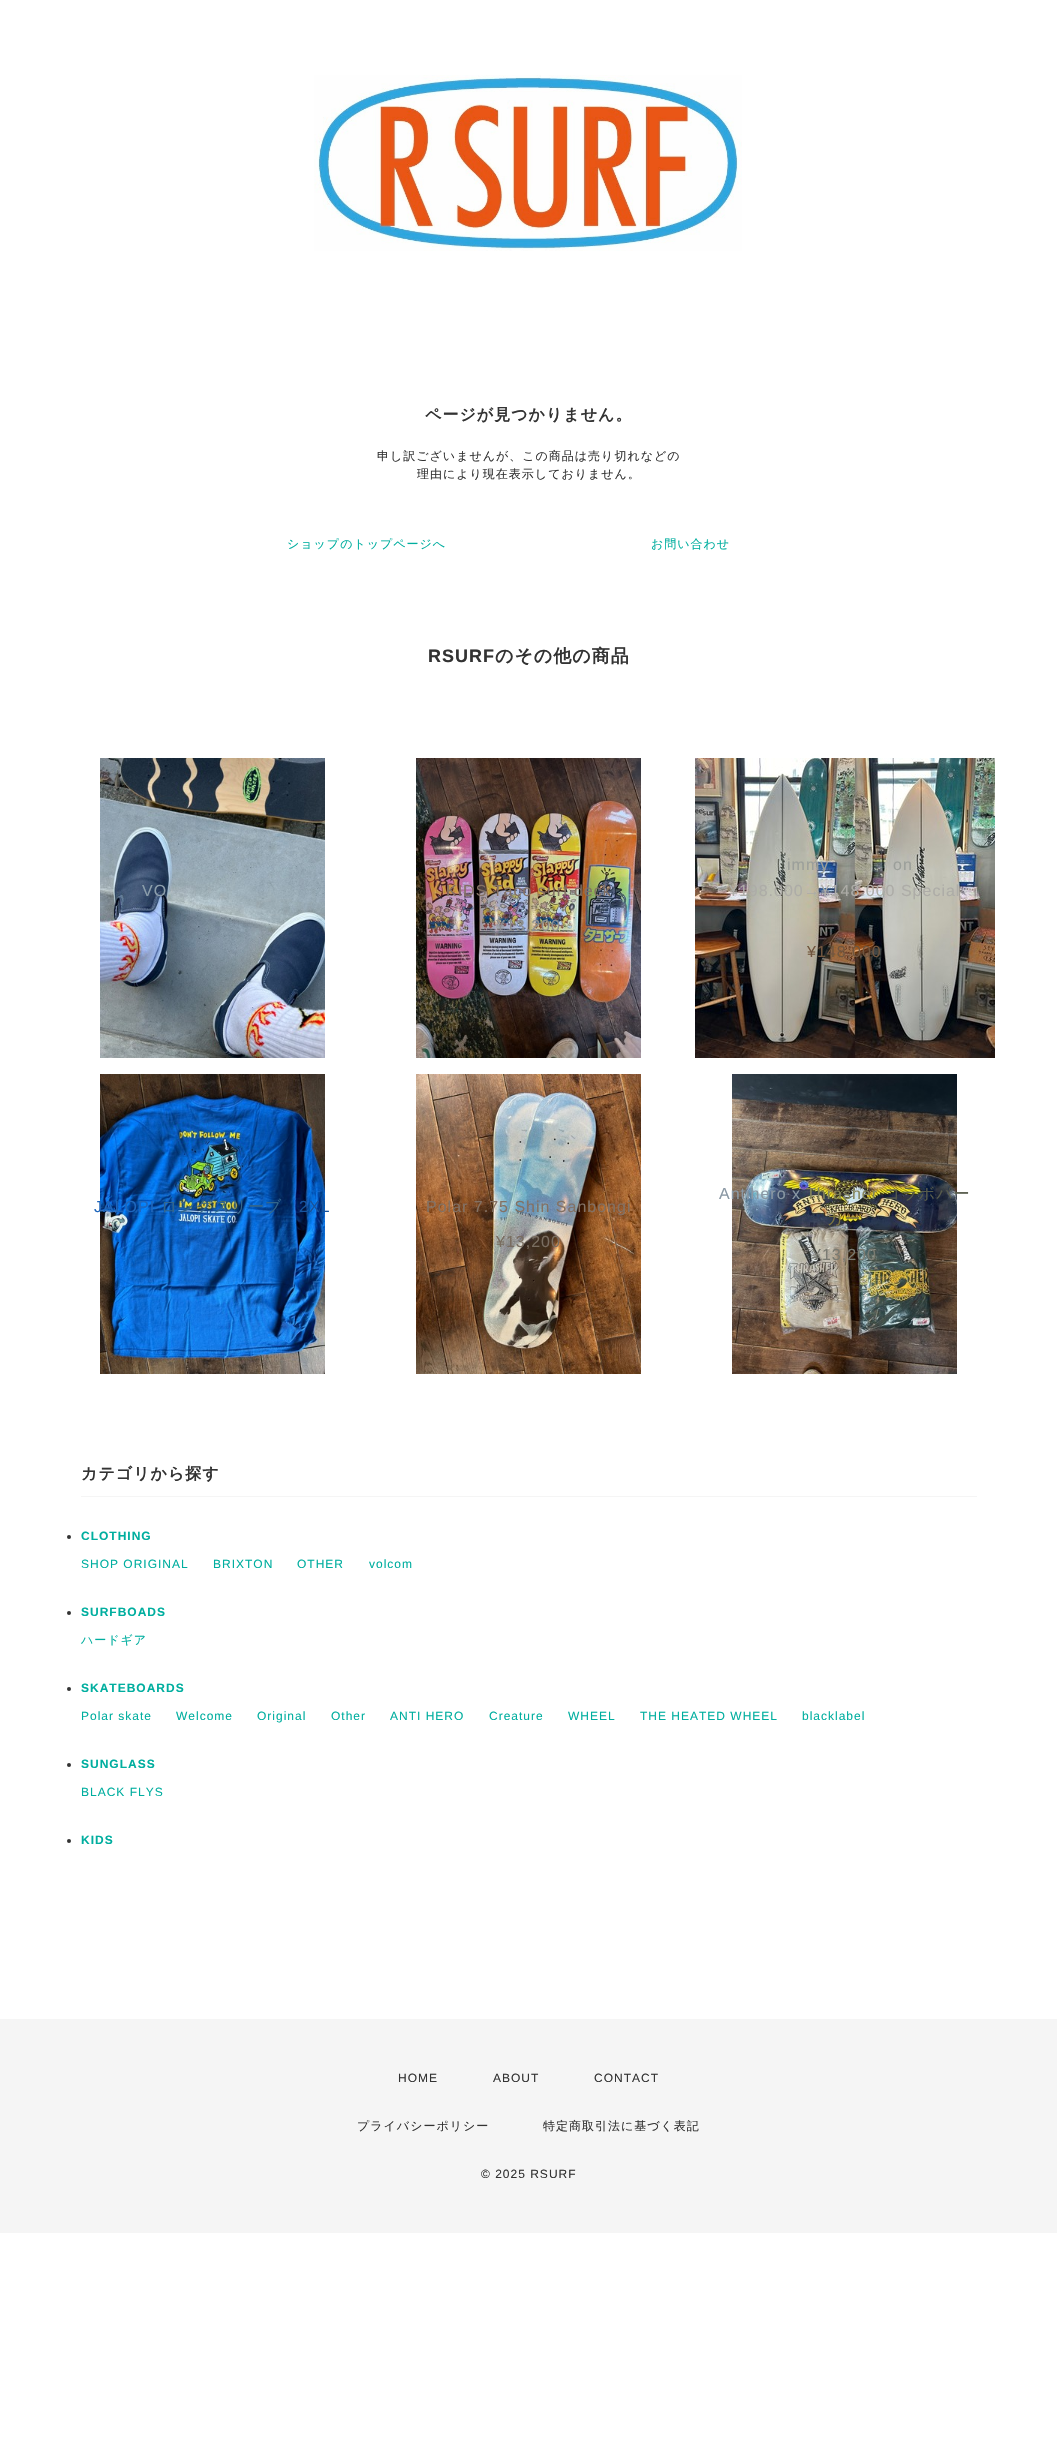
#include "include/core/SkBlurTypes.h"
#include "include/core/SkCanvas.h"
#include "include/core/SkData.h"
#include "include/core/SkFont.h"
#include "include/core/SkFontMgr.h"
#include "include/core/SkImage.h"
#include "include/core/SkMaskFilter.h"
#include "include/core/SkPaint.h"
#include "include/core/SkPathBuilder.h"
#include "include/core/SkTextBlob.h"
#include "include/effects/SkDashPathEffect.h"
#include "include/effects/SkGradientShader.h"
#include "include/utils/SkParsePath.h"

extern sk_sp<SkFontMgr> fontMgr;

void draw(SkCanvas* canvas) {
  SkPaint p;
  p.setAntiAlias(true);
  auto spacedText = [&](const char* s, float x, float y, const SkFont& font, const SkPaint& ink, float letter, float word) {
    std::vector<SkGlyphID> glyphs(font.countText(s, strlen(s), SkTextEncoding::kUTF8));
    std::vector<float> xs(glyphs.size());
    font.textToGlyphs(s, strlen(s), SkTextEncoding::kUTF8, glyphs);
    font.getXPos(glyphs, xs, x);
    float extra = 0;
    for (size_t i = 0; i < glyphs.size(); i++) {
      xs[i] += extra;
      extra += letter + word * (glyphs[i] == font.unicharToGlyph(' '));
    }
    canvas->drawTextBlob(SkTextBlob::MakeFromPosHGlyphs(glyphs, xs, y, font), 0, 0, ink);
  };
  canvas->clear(SK_ColorWHITE);
  canvas->drawImageRect(SkImages::DeferredFromEncodedData(SkData::MakeFromFileName("images/1.png")), SkRect::MakeLTRB(314, 75, 742, 251), SkSamplingOptions());
  canvas->drawImageRect(SkImages::DeferredFromEncodedData(SkData::MakeFromFileName("images/2.png")), SkRect::MakeLTRB(100, 758, 325, 1058), SkSamplingOptions());
  canvas->drawImageRect(SkImages::DeferredFromEncodedData(SkData::MakeFromFileName("images/3.png")), SkRect::MakeLTRB(416, 758, 641, 1058), SkSamplingOptions());
  canvas->drawImageRect(SkImages::DeferredFromEncodedData(SkData::MakeFromFileName("images/4.png")), SkRect::MakeLTRB(695, 758, 995, 1058), SkSamplingOptions());
  canvas->drawImageRect(SkImages::DeferredFromEncodedData(SkData::MakeFromFileName("images/5.png")), SkRect::MakeLTRB(100, 1074, 325, 1374), SkSamplingOptions());
  canvas->drawImageRect(SkImages::DeferredFromEncodedData(SkData::MakeFromFileName("images/6.png")), SkRect::MakeLTRB(416, 1074, 641, 1374), SkSamplingOptions());
  canvas->drawImageRect(SkImages::DeferredFromEncodedData(SkData::MakeFromFileName("images/7.png")), SkRect::MakeLTRB(732, 1074, 957, 1374), SkSamplingOptions());
  p.setColor(SkColorSetRGB(245, 245, 245));
  canvas->drawRect(SkRect::MakeLTRB(81, 1496, 977, 1497), p);
  p.setColor(SkColorSetRGB(51, 51, 51));
  canvas->drawCircle(69, 1537, 2, p);
  canvas->drawCircle(69, 1613, 2, p);
  canvas->drawCircle(69, 1689, 2, p);
  canvas->drawCircle(69, 1765, 2, p);
  canvas->drawCircle(69, 1841, 2, p);
  p.setColor(SkColorSetRGB(245, 245, 245));
  canvas->drawRect(SkRect::MakeLTRB(0, 2019, 1057, 2233), p);
  SkFont font1(fontMgr->matchFamilyStyle("WenQuanYi Zen Hei", SkFontStyle::Bold()), 16);
  font1.setSubpixel(true);
  p.setColor(SkColorSetRGB(51, 51, 51));
  spacedText("ページが見つかりません。", 425, 420, font1, p, 1, 0);
  SkFont font2(fontMgr->matchFamilyStyle("WenQuanYi Zen Hei", SkFontStyle(500, SkFontStyle::kNormal_Width, SkFontStyle::kUpright_Slant)), 12);
  font2.setSubpixel(true);
  spacedText("申し訳ございませんが、この商品は売り切れなどの", 377, 460, font2, p, 1, 0);
  spacedText("理由により現在表示しておりません。", 417, 478, font2, p, 1, 0);
  p.setColor(SkColorSetRGB(0, 174, 159));
  spacedText("ショップのトップページへ", 287, 548, font2, p, 1, 0);
  spacedText("お問い合わせ", 651, 548, font2, p, 1, 0);
  SkFont font3(fontMgr->matchFamilyStyle("Liberation Sans", SkFontStyle::Bold()), 18);
  font3.setSubpixel(true);
  p.setColor(SkColorSetRGB(51, 51, 51));
  spacedText("RSURF", 428, 662, font3, p, 1, 0);
  SkFont font4(fontMgr->matchFamilyStyle("WenQuanYi Zen Hei", SkFontStyle::Bold()), 18);
  font4.setSubpixel(true);
  spacedText("のその他の商品", 495, 662, font4, p, 1, 0);
  SkFont font5(fontMgr->matchFamilyStyle("Liberation Sans", SkFontStyle::Normal()), 16);
  font5.setSubpixel(true);
  p.setColor(SkColorSetRGB(140, 158, 171));
  spacedText("VO", 142, 896, font5, p, 1, 0);
  p.setColor(SkColorSetRGB(131, 113, 100));
  spacedText("KIDS Taco surf deck", 446, 896, font5, p, 1, 0);
  p.setColor(SkColorSetRGB(140, 142, 144));
  spacedText("¥13,200", 496, 931, font5, p, 1, 0);
  p.setColor(SkColorSetRGB(155, 159, 154));
  spacedText("immy", 787, 870, font5, p, 1, 0);
  spacedText("on", 893, 870, font5, p, 1, 0);
  p.setColor(SkColorSetRGB(173, 172, 167));
  spacedText("¥198.000→¥148.000 Special", 729, 896, font5, p, 1, 0);
  p.setColor(SkColorSetRGB(113, 86, 63));
  spacedText("¥148,000", 807, 957, font5, p, 1, 0);
  p.setColor(SkColorSetRGB(30, 102, 188));
  spacedText("JALOPI", 94, 1212, font5, p, 1, 0);
  SkFont font6(fontMgr->matchFamilyStyle("WenQuanYi Zen Hei", SkFontStyle(500, SkFontStyle::kNormal_Width, SkFontStyle::kUpright_Slant)), 16);
  font6.setSubpixel(true);
  p.setColor(SkColorSetRGB(50, 101, 139));
  spacedText("ロングスリーブ", 161, 1212, font6, p, 1, 0);
  p.setColor(SkColorSetRGB(23, 83, 157));
  spacedText("2XL", 299, 1212, font5, p, 1, 0);
  p.setColor(SkColorSetRGB(131, 113, 100));
  spacedText("Polar 7.75 Shin Sanbongi", 426, 1212, font5, p, 1, 0);
  p.setColor(SkColorSetRGB(121, 109, 96));
  spacedText("¥13,200", 496, 1247, font5, p, 1, 0);
  p.setColor(SkColorSetRGB(138, 152, 164));
  spacedText("Antihero x", 719, 1199, font5, p, 1, 0);
  p.setColor(SkColorSetRGB(133, 133, 91));
  spacedText("Thrasher", 806, 1199, font5, p, 1, 0);
  p.setColor(SkColorSetRGB(87, 91, 75));
  spacedText("コラボパー", 884, 1199, font6, p, 1, 0);
  p.setColor(SkColorSetRGB(125, 117, 63));
  spacedText("カー", 827, 1224, font6, p, 1, 0);
  p.setColor(SkColorSetRGB(122, 123, 114));
  spacedText("¥13,200", 812, 1260, font5, p, 1, 0);
  p.setColor(SkColorSetRGB(51, 51, 51));
  spacedText("カテゴリから探す", 81, 1479, font1, p, 1, 0);
  SkFont font7(fontMgr->matchFamilyStyle("Liberation Sans", SkFontStyle::Bold()), 12);
  font7.setSubpixel(true);
  p.setColor(SkColorSetRGB(0, 174, 159));
  spacedText("CLOTHING", 81, 1540, font7, p, 1, 0);
  SkFont font8(fontMgr->matchFamilyStyle("Liberation Sans", SkFontStyle::Normal()), 12);
  font8.setSubpixel(true);
  spacedText("SHOP ORIGINAL", 81, 1568, font8, p, 1, 0);
  spacedText("BRIXTON", 213, 1568, font8, p, 1, 0);
  spacedText("OTHER", 297, 1568, font8, p, 1, 0);
  spacedText("volcom", 369, 1568, font8, p, 1, 0);
  spacedText("SURFBOADS", 81, 1616, font7, p, 1, 0);
  spacedText("ハードギア", 81, 1644, font2, p, 1, 0);
  spacedText("SKATEBOARDS", 81, 1692, font7, p, 1, 0);
  spacedText("Polar skate", 81, 1720, font8, p, 1, 0);
  spacedText("Welcome", 176, 1720, font8, p, 1, 0);
  spacedText("Original", 257, 1720, font8, p, 1, 0);
  spacedText("Other", 331, 1720, font8, p, 1, 0);
  spacedText("ANTI HERO", 390, 1720, font8, p, 1, 0);
  spacedText("Creature", 489, 1720, font8, p, 1, 0);
  spacedText("WHEEL", 568, 1720, font8, p, 1, 0);
  spacedText("THE HEATED WHEEL", 640, 1720, font8, p, 1, 0);
  spacedText("blacklabel", 802, 1720, font8, p, 1, 0);
  spacedText("SUNGLASS", 81, 1768, font7, p, 1, 0);
  spacedText("BLACK FLYS", 81, 1796, font8, p, 1, 0);
  spacedText("KIDS", 81, 1844, font7, p, 1, 0);
  p.setColor(SkColorSetRGB(51, 51, 51));
  spacedText("HOME", 398, 2082, font8, p, 1, 0);
  spacedText("ABOUT", 493, 2082, font8, p, 1, 0);
  spacedText("CONTACT", 594, 2082, font8, p, 1, 0);
  spacedText("プライバシーポリシー", 357, 2130, font2, p, 1, 0);
  spacedText("特定商取引法に基づく表記", 543, 2130, font2, p, 1, 0);
  spacedText("© 2025 RSURF", 481, 2178, font8, p, 1, 0);
}
